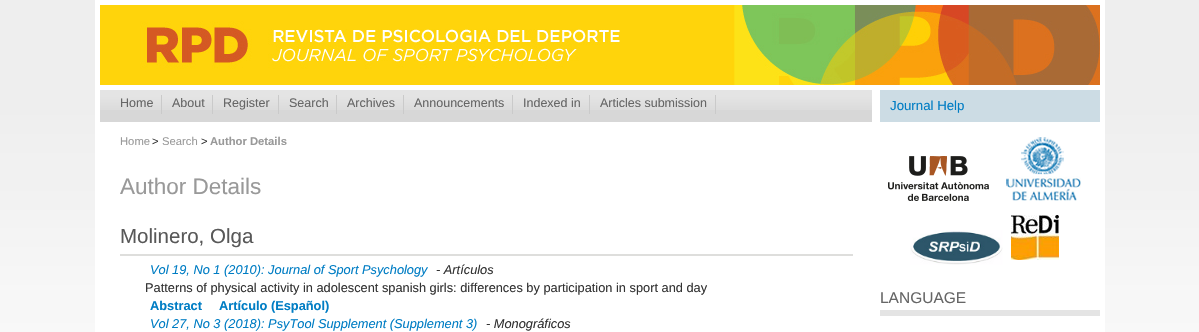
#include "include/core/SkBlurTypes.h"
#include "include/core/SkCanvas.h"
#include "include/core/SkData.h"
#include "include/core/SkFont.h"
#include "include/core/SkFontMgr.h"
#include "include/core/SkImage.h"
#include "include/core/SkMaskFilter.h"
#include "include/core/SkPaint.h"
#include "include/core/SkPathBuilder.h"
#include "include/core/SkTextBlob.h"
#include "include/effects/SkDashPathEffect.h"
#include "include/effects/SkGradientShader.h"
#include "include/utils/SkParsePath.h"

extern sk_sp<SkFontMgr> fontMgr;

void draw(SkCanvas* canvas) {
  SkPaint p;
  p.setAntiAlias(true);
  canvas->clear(SK_ColorWHITE);
  canvas->drawImageRect(SkImages::DeferredFromEncodedData(SkData::MakeFromFileName("images/1.png")), SkRect::MakeLTRB(0, 0, 1199, 332), SkSamplingOptions());
  p.setColor(SK_ColorWHITE);
  canvas->drawRect(SkRect::MakeLTRB(95, 0, 1105, 332), p);
  canvas->drawImageRect(SkImages::DeferredFromEncodedData(SkData::MakeFromFileName("images/2.png")), SkRect::MakeLTRB(100, 5, 1100, 85), SkSamplingOptions());
  p.setColor(SkColorSetRGB(215, 215, 215));
  canvas->drawRect(SkRect::MakeLTRB(100, 110, 872, 122), p);
  canvas->drawImageRect(SkImages::DeferredFromEncodedData(SkData::MakeFromFileName("images/3.png")), SkRect::MakeLTRB(100, 90, 872, 110), SkSamplingOptions());
  p.setColor(SkColorSetRGB(202, 202, 202));
  canvas->drawRect(SkRect::MakeLTRB(161, 95, 162, 114), p);
  canvas->drawRect(SkRect::MakeLTRB(212, 95, 213, 114), p);
  canvas->drawRect(SkRect::MakeLTRB(278, 95, 279, 114), p);
  canvas->drawRect(SkRect::MakeLTRB(336, 95, 337, 114), p);
  canvas->drawRect(SkRect::MakeLTRB(403, 95, 404, 114), p);
  canvas->drawRect(SkRect::MakeLTRB(512, 95, 513, 114), p);
  canvas->drawRect(SkRect::MakeLTRB(589, 95, 590, 114), p);
  canvas->drawRect(SkRect::MakeLTRB(715, 95, 716, 114), p);
  p.setColor(SkColorSetRGB(222, 222, 220));
  canvas->drawRect(SkRect::MakeLTRB(120, 254, 853, 256), p);
  p.setColor(SkColorSetRGB(204, 220, 228));
  canvas->drawRect(SkRect::MakeLTRB(880, 90, 1100, 122), p);
  canvas->drawImageRect(SkImages::DeferredFromEncodedData(SkData::MakeFromFileName("images/4.png")), SkRect::MakeLTRB(888, 156, 989, 201), SkSamplingOptions());
  canvas->drawImageRect(SkImages::DeferredFromEncodedData(SkData::MakeFromFileName("images/5.png")), SkRect::MakeLTRB(1006, 137, 1081, 201), SkSamplingOptions());
  canvas->drawImageRect(SkImages::DeferredFromEncodedData(SkData::MakeFromFileName("images/6.png")), SkRect::MakeLTRB(910, 230, 1003, 265), SkSamplingOptions());
  canvas->drawImageRect(SkImages::DeferredFromEncodedData(SkData::MakeFromFileName("images/7.png")), SkRect::MakeLTRB(1011, 215, 1059, 260), SkSamplingOptions());
  p.setColor(SkColorSetRGB(228, 228, 228));
  canvas->drawRect(SkRect::MakeLTRB(880, 310, 1100, 316), p);
  SkFont font1(fontMgr->matchFamilyStyle("Liberation Sans", SkFontStyle::Normal()), 12.5f);
  font1.setSubpixel(true);
  p.setColor(SkColorSetRGB(102, 102, 102));
  canvas->drawString("Home", 120, 107, font1, p);
  canvas->drawString("About", 172, 107, font1, p);
  canvas->drawString("Register", 223, 107, font1, p);
  canvas->drawString("Search", 289, 107, font1, p);
  canvas->drawString("Archives", 347, 107, font1, p);
  canvas->drawString("Announcements", 414, 107, font1, p);
  canvas->drawString("Indexed in", 523, 107, font1, p);
  canvas->drawString("Articles submission", 600, 107, font1, p);
  SkFont font2(fontMgr->matchFamilyStyle("Liberation Sans", SkFontStyle::Normal()), 11.25f);
  font2.setSubpixel(true);
  p.setColor(SkColorSetRGB(153, 153, 153));
  canvas->drawString("Home", 120, 145, font2, p);
  p.setColor(SkColorSetRGB(51, 51, 51));
  canvas->drawString(">", 152, 145, font2, p);
  p.setColor(SkColorSetRGB(153, 153, 153));
  canvas->drawString("Search", 162, 145, font2, p);
  p.setColor(SkColorSetRGB(51, 51, 51));
  canvas->drawString(">", 201, 145, font2, p);
  SkFont font3(fontMgr->matchFamilyStyle("Liberation Sans", SkFontStyle::Bold()), 11.25f);
  font3.setSubpixel(true);
  p.setColor(SkColorSetRGB(153, 153, 153));
  canvas->drawString("Author Details", 210, 145, font3, p);
  SkFont font4(fontMgr->matchFamilyStyle("Liberation Sans", SkFontStyle::Normal()), 22.5f);
  font4.setSubpixel(true);
  canvas->drawString("Author Details", 120, 194, font4, p);
  SkFont font5(fontMgr->matchFamilyStyle("Liberation Sans", SkFontStyle::Normal()), 20.5f);
  font5.setSubpixel(true);
  p.setColor(SkColorSetRGB(88, 88, 88));
  canvas->drawString("Molinero, Olga", 120, 243, font5, p);
  SkFont font6(fontMgr->matchFamilyStyle("Liberation Sans", SkFontStyle::Italic()), 12.8f);
  font6.setSubpixel(true);
  p.setColor(SkColorSetRGB(0, 125, 196));
  canvas->drawString("Vol 19, No 1 (2010): Journal of Sport Psychology", 150, 274, font6, p);
  p.setColor(SkColorSetRGB(51, 51, 51));
  canvas->drawString("- Artículos", 436, 274, font6, p);
  SkFont font7(fontMgr->matchFamilyStyle("Liberation Sans", SkFontStyle::Normal()), 12.8f);
  font7.setSubpixel(true);
  canvas->drawString("Patterns of physical activity in adolescent spanish girls: differences by participation in sport and day", 145, 292, font7, p);
  SkFont font8(fontMgr->matchFamilyStyle("Liberation Sans", SkFontStyle::Bold()), 12.8f);
  font8.setSubpixel(true);
  p.setColor(SkColorSetRGB(0, 125, 196));
  canvas->drawString("Abstract", 150, 310, font8, p);
  canvas->drawString("Artículo (Español)", 219, 310, font8, p);
  canvas->drawString("Vol 27, No 3 (2018): PsyTool Supplement (Supplement 3)", 150, 328, font6, p);
  p.setColor(SkColorSetRGB(51, 51, 51));
  canvas->drawString("- Monográficos", 486, 328, font6, p);
  SkFont font9(fontMgr->matchFamilyStyle("Liberation Sans", SkFontStyle::Normal()), 13.25f);
  font9.setSubpixel(true);
  p.setColor(SkColorSetRGB(0, 125, 196));
  canvas->drawString("Journal Help", 890, 110, font9, p);
  SkFont font10(fontMgr->matchFamilyStyle("Liberation Sans", SkFontStyle::Normal()), 15.5f);
  font10.setSubpixel(true);
  p.setColor(SkColorSetRGB(102, 102, 102));
  canvas->drawString("LANGUAGE", 880, 303, font10, p);
}
